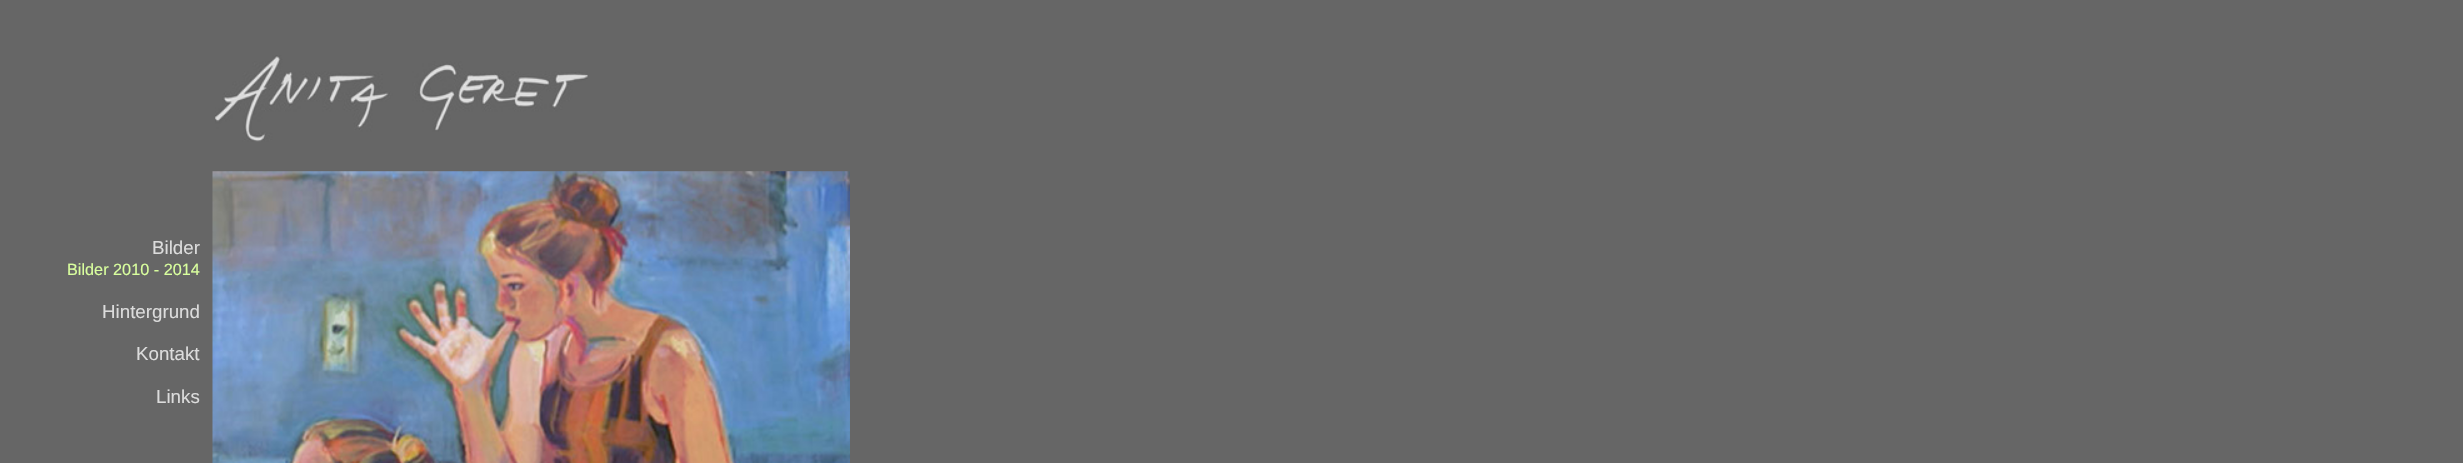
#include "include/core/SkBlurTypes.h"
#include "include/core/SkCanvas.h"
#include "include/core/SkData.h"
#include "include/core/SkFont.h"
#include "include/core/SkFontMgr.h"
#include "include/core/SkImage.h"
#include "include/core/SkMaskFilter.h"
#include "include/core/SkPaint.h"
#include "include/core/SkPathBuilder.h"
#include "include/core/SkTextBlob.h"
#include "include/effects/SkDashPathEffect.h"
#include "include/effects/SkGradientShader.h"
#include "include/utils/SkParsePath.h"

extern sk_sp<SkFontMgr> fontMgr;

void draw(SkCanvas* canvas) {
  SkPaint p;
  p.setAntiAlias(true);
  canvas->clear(SkColorSetRGB(102, 102, 102));
  canvas->drawImageRect(SkImages::DeferredFromEncodedData(SkData::MakeFromFileName("images/1.png")), SkRect::MakeLTRB(215, 55, 588, 142), SkSamplingOptions());
  canvas->drawImageRect(SkImages::DeferredFromEncodedData(SkData::MakeFromFileName("images/2.png")), SkRect::MakeLTRB(212, 171, 850, 463), SkSamplingOptions());
  SkFont font1(fontMgr->matchFamilyStyle("Liberation Sans", SkFontStyle::Normal()), 18.75f);
  font1.setSubpixel(true);
  p.setColor(SkColorSetRGB(220, 220, 220));
  canvas->drawString("Bilder", 152, 254, font1, p);
  SkFont font2(fontMgr->matchFamilyStyle("Liberation Sans", SkFontStyle::Normal()), 16.25f);
  font2.setSubpixel(true);
  p.setColor(SkColorSetRGB(217, 255, 158));
  canvas->drawString("Bilder 2010 - 2014", 67, 275, font2, p);
  p.setColor(SkColorSetRGB(220, 220, 220));
  canvas->drawString("Hintergrund", 102, 318, font1, p);
  canvas->drawString("Kontakt", 136, 360, font1, p);
  canvas->drawString("Links", 156, 403, font1, p);
}
